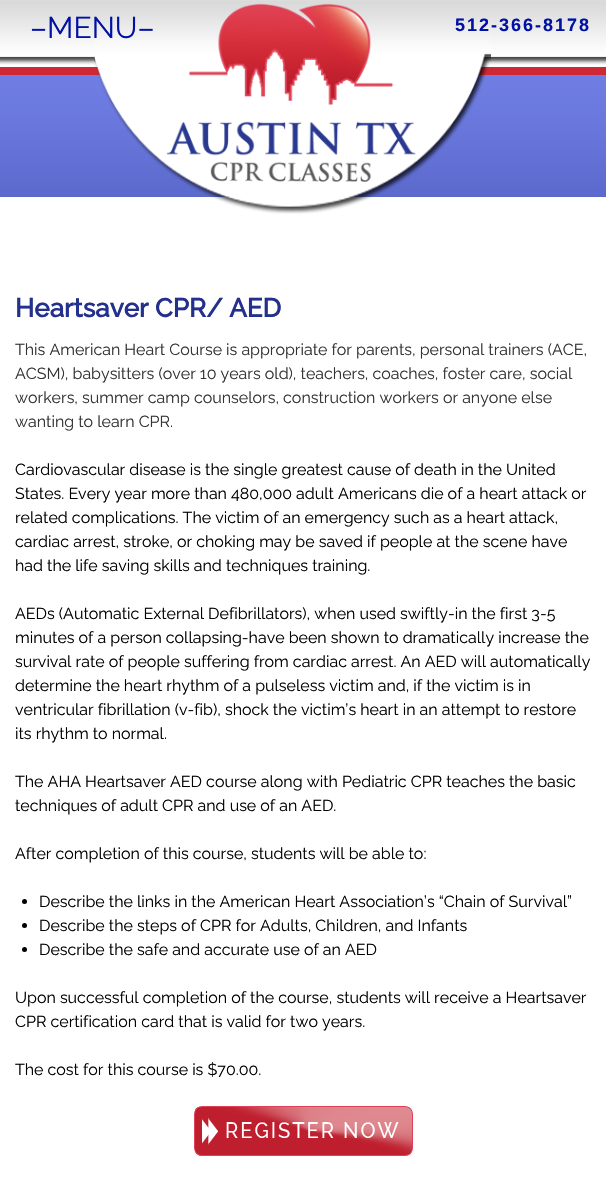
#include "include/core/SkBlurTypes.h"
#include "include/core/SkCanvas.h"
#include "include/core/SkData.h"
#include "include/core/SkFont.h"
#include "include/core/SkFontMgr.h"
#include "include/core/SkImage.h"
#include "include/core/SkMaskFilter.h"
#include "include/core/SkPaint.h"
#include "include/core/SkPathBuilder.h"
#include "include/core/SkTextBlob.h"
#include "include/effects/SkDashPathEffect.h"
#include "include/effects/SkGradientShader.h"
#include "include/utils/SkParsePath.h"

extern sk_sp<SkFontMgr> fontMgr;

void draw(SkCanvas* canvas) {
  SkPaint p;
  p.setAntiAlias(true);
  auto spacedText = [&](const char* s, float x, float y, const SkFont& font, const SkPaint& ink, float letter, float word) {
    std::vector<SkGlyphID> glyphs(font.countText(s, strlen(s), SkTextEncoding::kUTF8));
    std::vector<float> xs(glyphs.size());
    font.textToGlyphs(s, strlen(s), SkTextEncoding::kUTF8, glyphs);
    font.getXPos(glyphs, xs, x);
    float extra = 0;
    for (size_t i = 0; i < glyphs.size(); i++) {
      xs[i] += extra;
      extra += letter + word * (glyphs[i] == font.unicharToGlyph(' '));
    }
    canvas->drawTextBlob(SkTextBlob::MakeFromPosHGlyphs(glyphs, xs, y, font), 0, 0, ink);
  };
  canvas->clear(SK_ColorWHITE);
  canvas->drawImageRect(SkImages::DeferredFromEncodedData(SkData::MakeFromFileName("images/1.png")), SkRect::MakeLTRB(0, 0, 606, 65), SkSamplingOptions());
  canvas->drawImageRect(SkImages::DeferredFromEncodedData(SkData::MakeFromFileName("images/3.png")), SkRect::MakeLTRB(0, 67, 606, 197), SkSamplingOptions());
  canvas->drawImageRect(SkImages::DeferredFromEncodedData(SkData::MakeFromFileName("images/2.png")), SkRect::MakeLTRB(94, 3, 491, 214), SkSamplingOptions());
  p.setColor(SK_ColorBLACK);
  canvas->drawCircle(24.5f, 901.5f, 2.5f, p);
  canvas->drawCircle(24.5f, 925.5f, 2.5f, p);
  canvas->drawCircle(24.5f, 949.5f, 2.5f, p);
  canvas->drawImageRect(SkImages::DeferredFromEncodedData(SkData::MakeFromFileName("images/4.png")), SkRect::MakeLTRB(195, 1107, 412, 1156), SkSamplingOptions());
  p.setStyle(SkPaint::kStroke_Style);
  p.setStrokeWidth(1);
  p.setColor(SkColorSetRGB(221, 66, 86));
  canvas->drawRoundRect(SkRect::MakeLTRB(194.5f, 1106.5f, 412.5f, 1155.5f), 7.5f, 7.5f, p);
  SkFont font1(fontMgr->matchFamilyStyle("Raleway", SkFontStyle::Normal()), 30);
  font1.setSubpixel(true);
  p.setStyle(SkPaint::kFill_Style);
  p.setColor(SkColorSetRGB(0, 17, 164));
  canvas->drawString("–MENU–", 30, 38, font1, p);
  SkFont font2(fontMgr->matchFamilyStyle("Liberation Sans", SkFontStyle::Bold()), 18);
  font2.setSubpixel(true);
  spacedText("512-366-8178", 455, 31, font2, p, 2, 0);
  SkFont font3(fontMgr->matchFamilyStyle("Raleway", SkFontStyle::Bold()), 26);
  font3.setSubpixel(true);
  p.setColor(SkColorSetRGB(35, 48, 141));
  canvas->drawString("Heartsaver CPR/ AED", 15, 317, font3, p);
  SkFont font4(fontMgr->matchFamilyStyle("Raleway", SkFontStyle::Normal()), 16);
  font4.setSubpixel(true);
  p.setColor(SkColorSetRGB(51, 51, 51));
  canvas->drawString("This American Heart Course is appropriate for parents, personal trainers (ACE,", 15, 355, font4, p);
  canvas->drawString("ACSM), babysitters (over 10 years old), teachers, coaches, foster care, social", 15, 379, font4, p);
  canvas->drawString("workers, summer camp counselors, construction workers or anyone else", 15, 403, font4, p);
  canvas->drawString("wanting to learn CPR.", 15, 427, font4, p);
  p.setColor(SK_ColorBLACK);
  canvas->drawString("Cardiovascular disease is the single greatest cause of death in the United", 15, 475, font4, p);
  canvas->drawString("States. Every year more than 480,000 adult Americans die of a heart attack or", 15, 499, font4, p);
  canvas->drawString("related complications. The victim of an emergency such as a heart attack,", 15, 523, font4, p);
  canvas->drawString("cardiac arrest, stroke, or choking may be saved if people at the scene have", 15, 547, font4, p);
  canvas->drawString("had the life saving skills and techniques training.", 15, 571, font4, p);
  canvas->drawString("AEDs (Automatic External Defibrillators), when used swiftly-in the first 3-5", 15, 619, font4, p);
  canvas->drawString("minutes of a person collapsing-have been shown to dramatically increase the", 15, 643, font4, p);
  canvas->drawString("survival rate of people suffering from cardiac arrest. An AED will automatically", 15, 667, font4, p);
  canvas->drawString("determine the heart rhythm of a pulseless victim and, if the victim is in", 15, 691, font4, p);
  canvas->drawString("ventricular fibrillation (v-fib), shock the victim’s heart in an attempt to restore", 15, 715, font4, p);
  canvas->drawString("its rhythm to normal.", 15, 739, font4, p);
  canvas->drawString("The AHA Heartsaver AED course along with Pediatric CPR teaches the basic", 15, 787, font4, p);
  canvas->drawString("techniques of adult CPR and use of an AED.", 15, 811, font4, p);
  canvas->drawString("After completion of this course, students will be able to:", 15, 859, font4, p);
  canvas->drawString("Describe the links in the American Heart Association’s “Chain of Survival”", 39, 907, font4, p);
  canvas->drawString("Describe the steps of CPR for Adults, Children, and Infants", 39, 931, font4, p);
  canvas->drawString("Describe the safe and accurate use of an AED", 39, 955, font4, p);
  canvas->drawString("Upon successful completion of the course, students will receive a Heartsaver", 15, 1003, font4, p);
  canvas->drawString("CPR certification card that is valid for two years.", 15, 1027, font4, p);
  canvas->drawString("The cost for this course is $70.00.", 15, 1075, font4, p);
}
